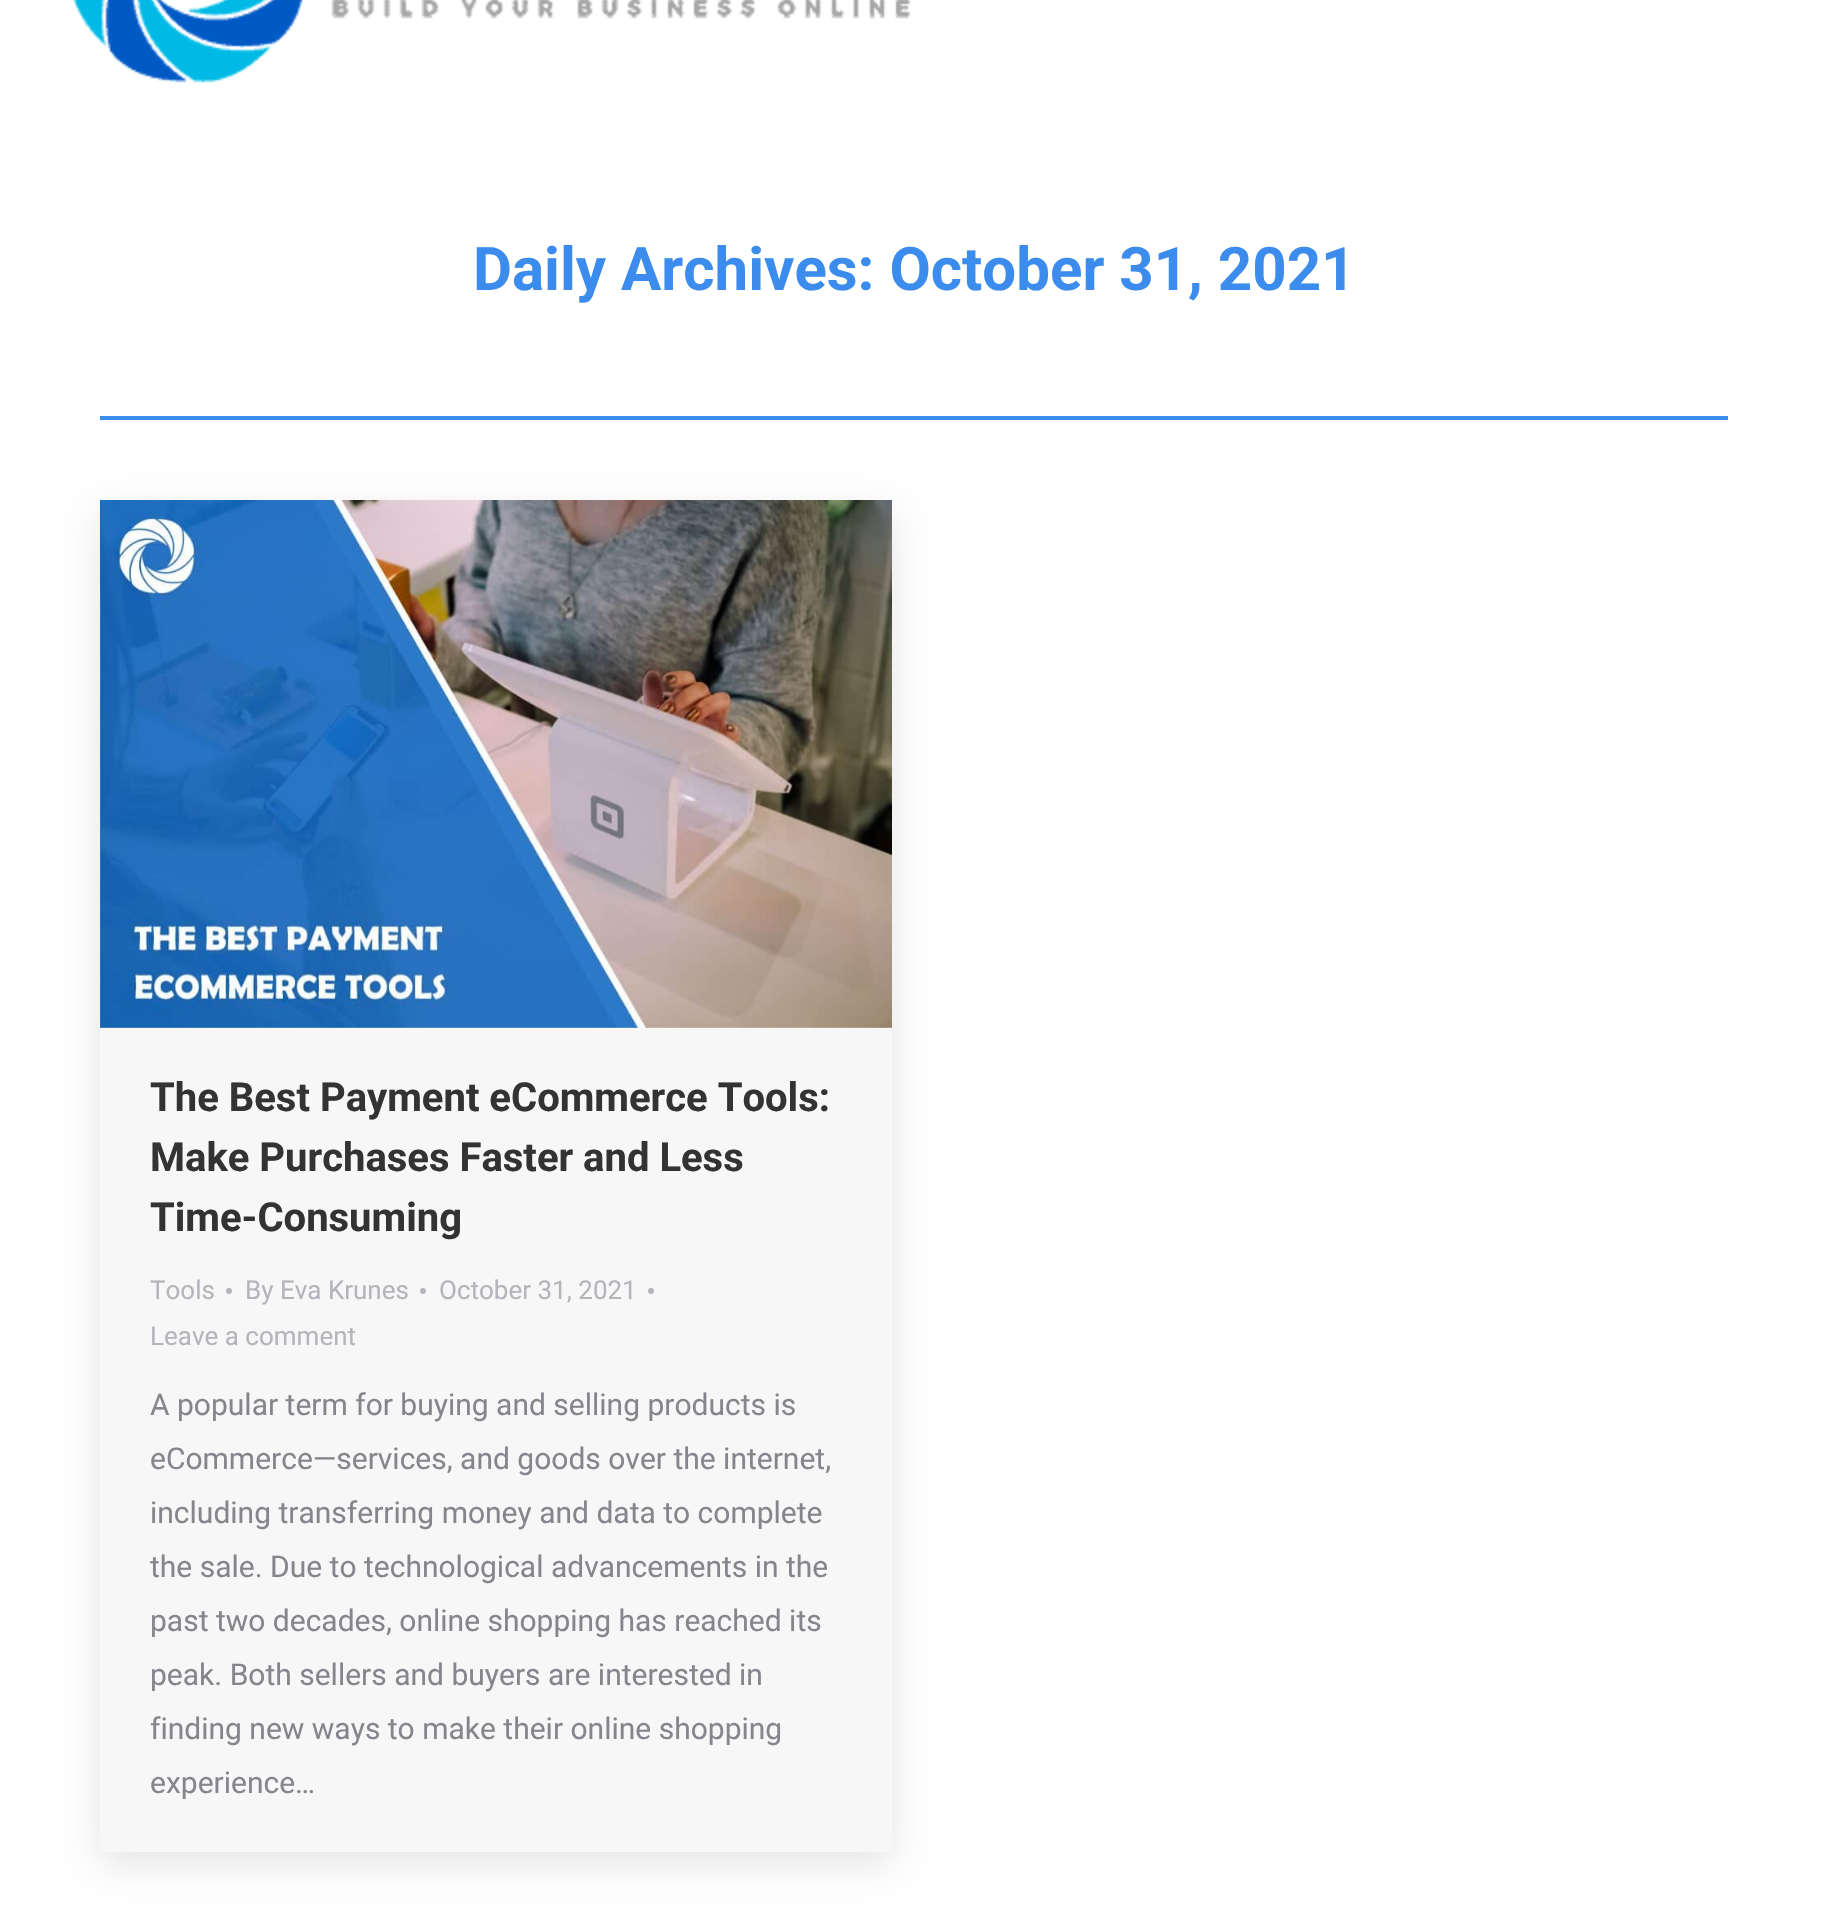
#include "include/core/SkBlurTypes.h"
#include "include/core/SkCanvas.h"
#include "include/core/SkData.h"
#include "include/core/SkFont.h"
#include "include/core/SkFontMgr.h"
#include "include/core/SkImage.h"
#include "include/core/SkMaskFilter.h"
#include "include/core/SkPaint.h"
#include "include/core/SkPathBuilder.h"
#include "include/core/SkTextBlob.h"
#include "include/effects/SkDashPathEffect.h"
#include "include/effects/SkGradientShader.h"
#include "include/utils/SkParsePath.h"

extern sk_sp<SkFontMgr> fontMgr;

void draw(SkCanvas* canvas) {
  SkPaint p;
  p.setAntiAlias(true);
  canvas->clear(SK_ColorWHITE);
  canvas->drawImageRect(SkImages::DeferredFromEncodedData(SkData::MakeFromFileName("images/1.png")), SkRect::MakeLTRB(73, 0, 911, 83), SkSamplingOptions());
  p.setColor(SkColorSetRGB(59, 140, 237));
  canvas->drawRect(SkRect::MakeLTRB(100, 416, 1728, 420), p);
  p.setColor(SkColorSetARGB(26, 0, 0, 0));
  p.setMaskFilter(SkMaskFilter::MakeBlur(kNormal_SkBlurStyle, 18));
  canvas->drawRect(SkRect::MakeLTRB(100, 512, 892, 1864), p);
  p.setMaskFilter(nullptr);
  p.setColor(SkColorSetRGB(247, 247, 247));
  canvas->drawRect(SkRect::MakeLTRB(100, 1027, 892, 1852), p);
  canvas->drawImageRect(SkImages::DeferredFromEncodedData(SkData::MakeFromFileName("images/2.png")), SkRect::MakeLTRB(100, 500, 892, 1028), SkSamplingOptions());
  p.setColor(SkColorSetRGB(180, 181, 187));
  canvas->drawCircle(229, 1291, 3, p);
  canvas->drawCircle(423, 1291, 3, p);
  canvas->drawCircle(651, 1291, 3, p);
  SkFont font1(fontMgr->matchFamilyStyle("Roboto", SkFontStyle::Bold()), 60);
  font1.setSubpixel(true);
  p.setColor(SkColorSetRGB(59, 140, 237));
  canvas->drawString("Daily Archives: October 31, 2021", 473, 290, font1, p);
  SkFont font2(fontMgr->matchFamilyStyle("Roboto", SkFontStyle::Bold()), 40);
  font2.setSubpixel(true);
  p.setColor(SkColorSetRGB(51, 51, 51));
  canvas->drawString("The Best Payment eCommerce Tools:", 150, 1111, font2, p);
  canvas->drawString("Make Purchases Faster and Less", 150, 1171, font2, p);
  canvas->drawString("Time-Consuming", 150, 1231, font2, p);
  SkFont font3(fontMgr->matchFamilyStyle("Roboto", SkFontStyle::Normal()), 26);
  font3.setSubpixel(true);
  p.setColor(SkColorSetRGB(180, 181, 187));
  canvas->drawString("Tools", 150, 1299, font3, p);
  canvas->drawString("By Eva Krunes", 245, 1299, font3, p);
  canvas->drawString("October 31, 2021", 439, 1299, font3, p);
  canvas->drawString("Leave a comment", 150, 1345, font3, p);
  SkFont font4(fontMgr->matchFamilyStyle("Roboto", SkFontStyle::Normal()), 30);
  font4.setSubpixel(true);
  p.setColor(SkColorSetRGB(133, 134, 140));
  canvas->drawString("A popular term for buying and selling products is", 150, 1415, font4, p);
  canvas->drawString("eCommerce—services, and goods over the internet,", 150, 1469, font4, p);
  canvas->drawString("including transferring money and data to complete", 150, 1523, font4, p);
  canvas->drawString("the sale. Due to technological advancements in the", 150, 1577, font4, p);
  canvas->drawString("past two decades, online shopping has reached its", 150, 1631, font4, p);
  canvas->drawString("peak. Both sellers and buyers are interested in", 150, 1685, font4, p);
  canvas->drawString("finding new ways to make their online shopping", 150, 1739, font4, p);
  canvas->drawString("experience…", 150, 1793, font4, p);
}
